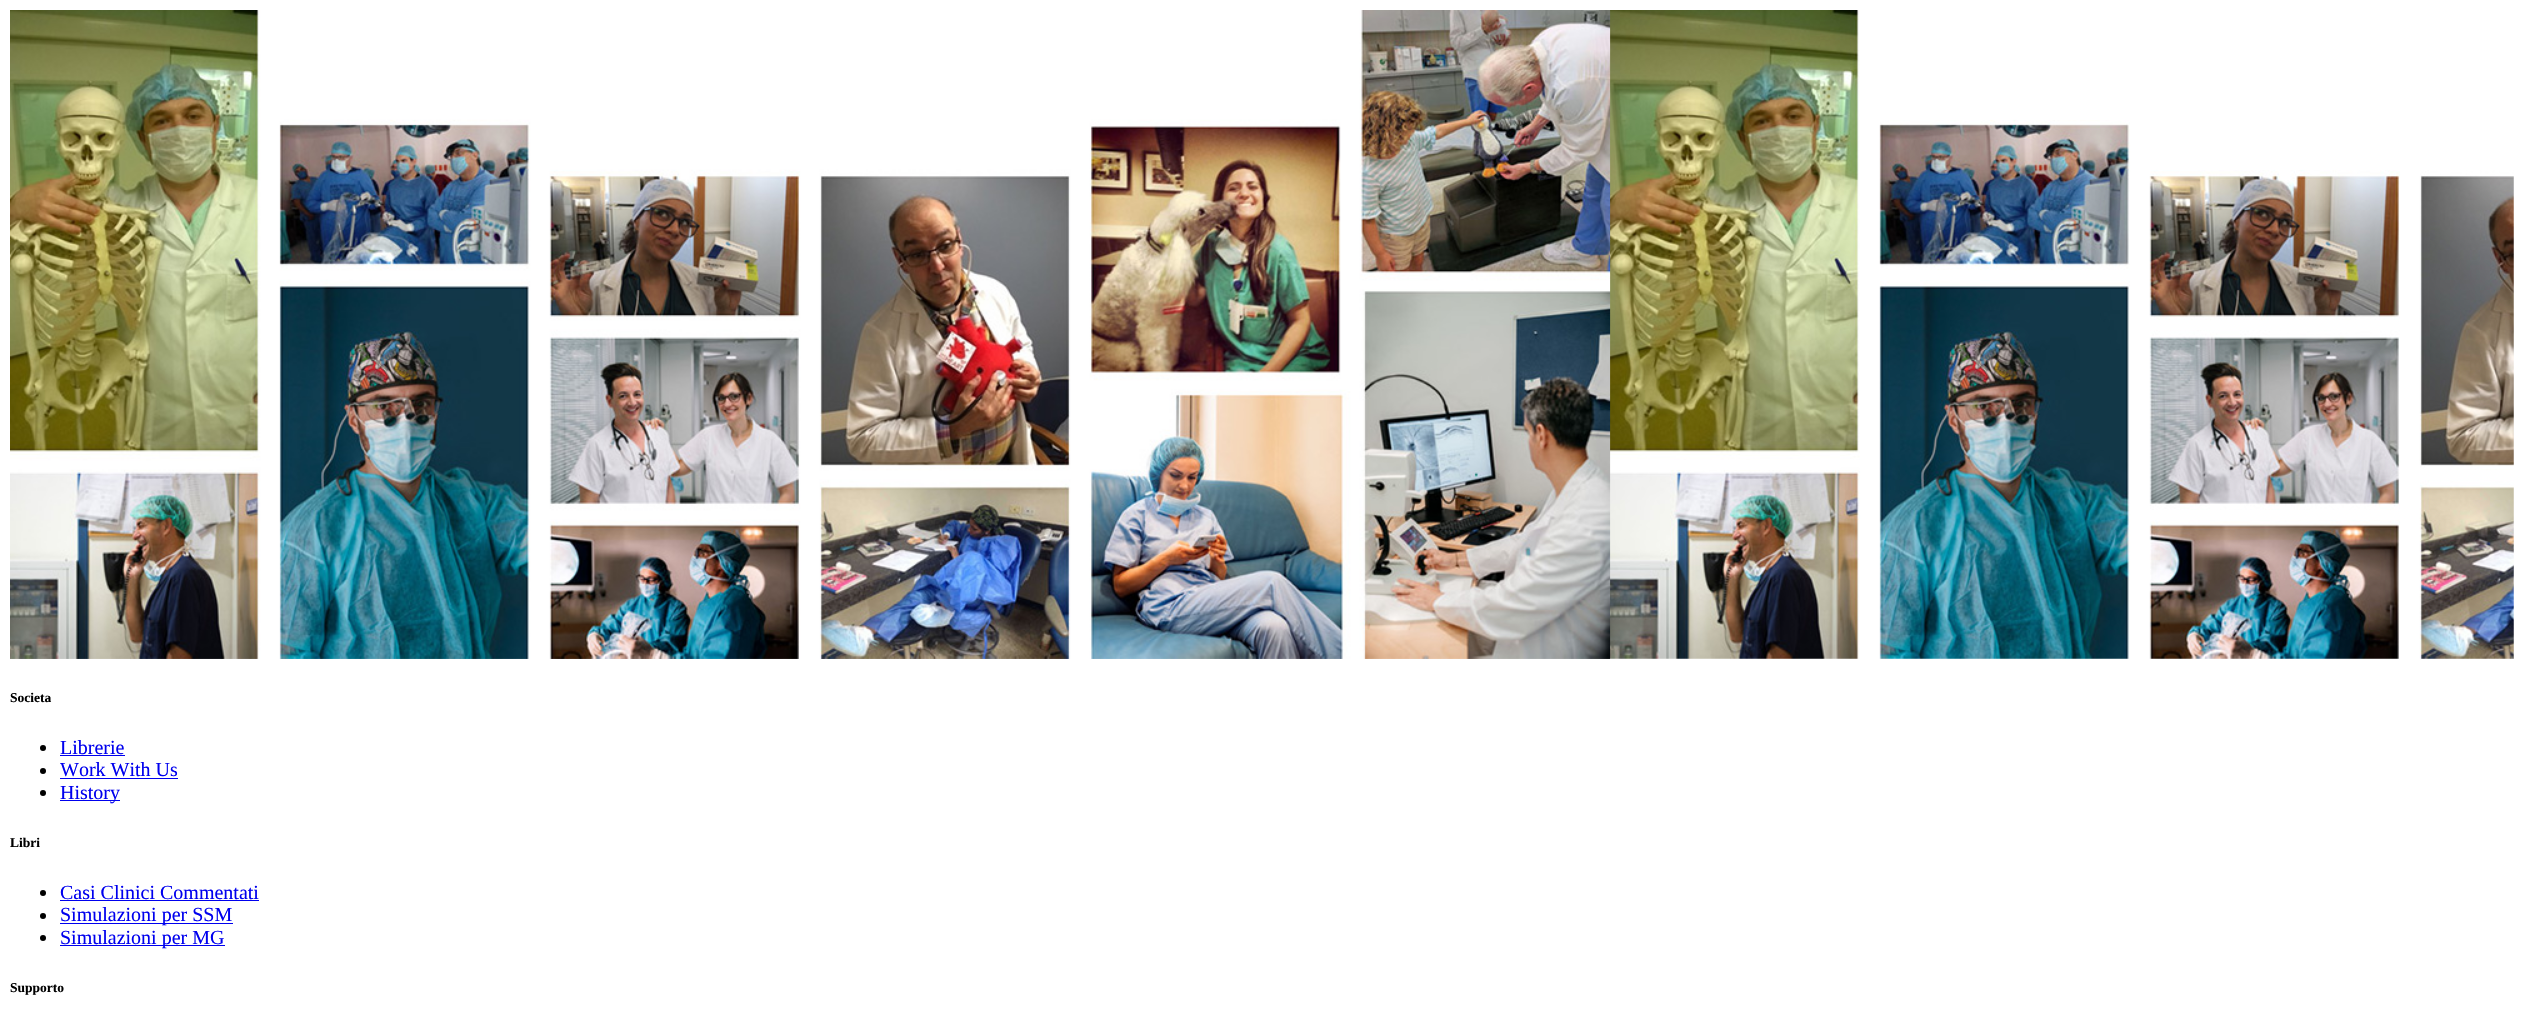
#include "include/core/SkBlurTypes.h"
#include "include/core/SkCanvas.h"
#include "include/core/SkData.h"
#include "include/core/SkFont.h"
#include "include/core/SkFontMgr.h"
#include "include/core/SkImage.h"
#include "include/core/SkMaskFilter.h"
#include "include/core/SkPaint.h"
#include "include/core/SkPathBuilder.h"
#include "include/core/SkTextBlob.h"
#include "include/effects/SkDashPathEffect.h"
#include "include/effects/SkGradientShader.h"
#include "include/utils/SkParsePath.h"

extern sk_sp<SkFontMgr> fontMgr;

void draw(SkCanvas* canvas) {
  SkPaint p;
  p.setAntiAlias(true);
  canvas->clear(SK_ColorWHITE);
  canvas->drawImageRect(SkImages::DeferredFromEncodedData(SkData::MakeFromFileName("images/1.png")), SkRect::MakeLTRB(10, 10, 2514, 659), SkSamplingOptions());
  canvas->drawImageRect(SkImages::DeferredFromEncodedData(SkData::MakeFromFileName("images/2.png")), SkRect::MakeLTRB(10, 10, 1610, 659), SkSamplingOptions());
  p.setColor(SK_ColorBLACK);
  canvas->drawCircle(43, 748, 3, p);
  p.setColor(SkColorSetRGB(0, 0, 238));
  canvas->drawRect(SkRect::MakeLTRB(60, 755, 125, 756), p);
  p.setColor(SK_ColorBLACK);
  canvas->drawCircle(43, 771, 3, p);
  p.setColor(SkColorSetRGB(0, 0, 238));
  canvas->drawRect(SkRect::MakeLTRB(60, 778, 178, 779), p);
  p.setColor(SK_ColorBLACK);
  canvas->drawCircle(43, 793, 3, p);
  p.setColor(SkColorSetRGB(0, 0, 238));
  canvas->drawRect(SkRect::MakeLTRB(60, 800, 120, 801), p);
  p.setColor(SK_ColorBLACK);
  canvas->drawCircle(43, 893, 3, p);
  p.setColor(SkColorSetRGB(0, 0, 238));
  canvas->drawRect(SkRect::MakeLTRB(60, 900, 259, 901), p);
  p.setColor(SK_ColorBLACK);
  canvas->drawCircle(43, 916, 3, p);
  p.setColor(SkColorSetRGB(0, 0, 238));
  canvas->drawRect(SkRect::MakeLTRB(60, 923, 233, 924), p);
  p.setColor(SK_ColorBLACK);
  canvas->drawCircle(43, 938, 3, p);
  p.setColor(SkColorSetRGB(0, 0, 238));
  canvas->drawRect(SkRect::MakeLTRB(60, 945, 225, 946), p);
  SkFont font1(fontMgr->matchFamilyStyle("Liberation Serif", SkFontStyle::Bold()), 13.5f);
  font1.setSubpixel(true);
  p.setColor(SK_ColorBLACK);
  canvas->drawString("Societa", 10, 702, font1, p);
  SkFont font2(fontMgr->matchFamilyStyle("Liberation Serif", SkFontStyle::Normal()), 20);
  font2.setSubpixel(true);
  p.setColor(SkColorSetRGB(0, 0, 238));
  canvas->drawString("Librerie", 60, 754, font2, p);
  canvas->drawString("Work With Us", 60, 776, font2, p);
  canvas->drawString("History", 60, 799, font2, p);
  p.setColor(SK_ColorBLACK);
  canvas->drawString("Libri", 10, 847, font1, p);
  p.setColor(SkColorSetRGB(0, 0, 238));
  canvas->drawString("Casi Clinici Commentati", 60, 899, font2, p);
  canvas->drawString("Simulazioni per SSM", 60, 921, font2, p);
  canvas->drawString("Simulazioni per MG", 60, 944, font2, p);
  p.setColor(SK_ColorBLACK);
  canvas->drawString("Supporto", 10, 992, font1, p);
}
